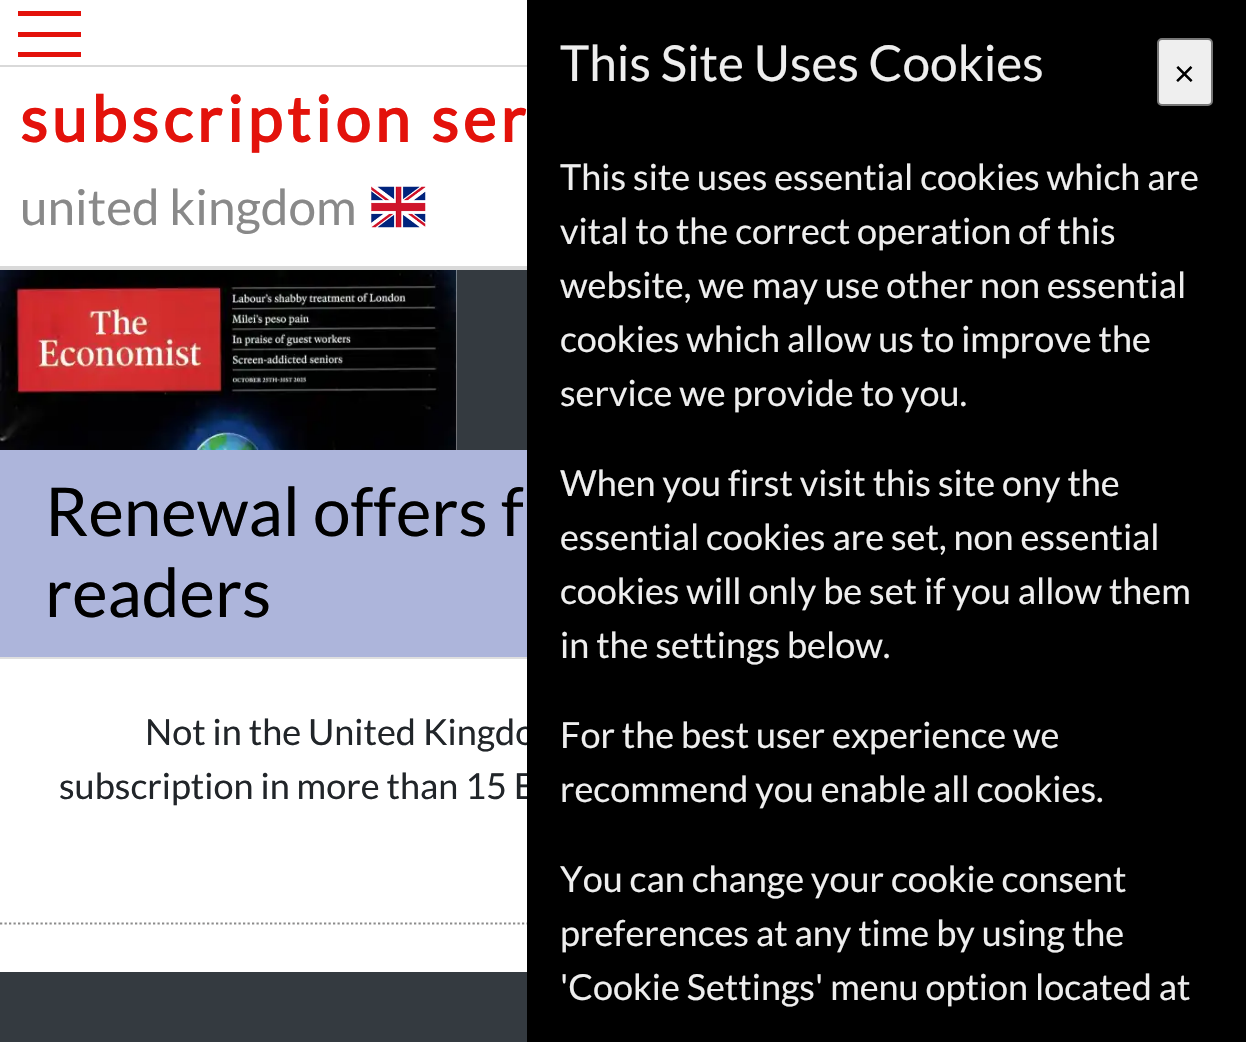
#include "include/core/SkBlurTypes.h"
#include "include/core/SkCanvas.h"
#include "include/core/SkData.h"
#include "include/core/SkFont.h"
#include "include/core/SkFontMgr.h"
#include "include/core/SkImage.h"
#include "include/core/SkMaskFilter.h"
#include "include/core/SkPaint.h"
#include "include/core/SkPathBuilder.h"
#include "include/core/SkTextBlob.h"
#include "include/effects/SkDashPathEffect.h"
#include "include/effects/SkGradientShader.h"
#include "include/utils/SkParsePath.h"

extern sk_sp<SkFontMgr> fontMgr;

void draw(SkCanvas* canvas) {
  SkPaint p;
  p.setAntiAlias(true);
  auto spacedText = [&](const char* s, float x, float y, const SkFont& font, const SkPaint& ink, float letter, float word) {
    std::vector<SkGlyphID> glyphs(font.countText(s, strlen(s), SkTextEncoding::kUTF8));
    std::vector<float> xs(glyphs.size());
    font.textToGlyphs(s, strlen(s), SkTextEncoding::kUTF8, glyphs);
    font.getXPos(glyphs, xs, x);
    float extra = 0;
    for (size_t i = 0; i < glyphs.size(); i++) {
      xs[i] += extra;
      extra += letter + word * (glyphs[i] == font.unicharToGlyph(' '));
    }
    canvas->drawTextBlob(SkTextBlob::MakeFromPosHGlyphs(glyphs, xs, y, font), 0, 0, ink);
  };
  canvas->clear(SK_ColorWHITE);
  p.setColor(SkColorSetRGB(217, 217, 217));
  canvas->drawRect(SkRect::MakeLTRB(0, 266, 527, 270), p);
  p.setColor(SkColorSetRGB(227, 18, 11));
  canvas->drawRect(SkRect::MakeLTRB(18, 11, 81, 16), p);
  canvas->drawRect(SkRect::MakeLTRB(18, 32, 81, 37), p);
  canvas->drawRect(SkRect::MakeLTRB(18, 52, 81, 57), p);
  p.setColor(SkColorSetRGB(217, 217, 217));
  canvas->drawRect(SkRect::MakeLTRB(0, 65, 527, 67), p);
  canvas->drawImageRect(SkImages::DeferredFromEncodedData(SkData::MakeFromFileName("images/1.png")), SkRect::MakeLTRB(371, 186, 426, 228), SkSamplingOptions());
  canvas->drawImageRect(SkImages::DeferredFromEncodedData(SkData::MakeFromFileName("images/2.png")), SkRect::MakeLTRB(0, 270, 457, 450), SkSamplingOptions());
  p.setColor(SkColorSetRGB(52, 58, 64));
  canvas->drawRect(SkRect::MakeLTRB(457, 270, 527, 450), p);
  p.setColor(SkColorSetRGB(173, 181, 219));
  canvas->drawRect(SkRect::MakeLTRB(0, 450, 527, 657), p);
  p.setColor(SkColorSetRGB(223, 223, 223));
  canvas->drawRect(SkRect::MakeLTRB(0, 657, 527, 659), p);
  p.setStyle(SkPaint::kStroke_Style);
  p.setStrokeWidth(2.2f);
  p.setColor(SkColorSetRGB(140, 139, 139));
  p.setPathEffect(SkDashPathEffect::Make({{2.25f, 2.25f}}, 0));
  canvas->drawPath(SkPathBuilder().moveTo(0, 923.5f).lineTo(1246.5f, 923.5f).detach(), p);
  p.setPathEffect(nullptr);
  p.setStyle(SkPaint::kFill_Style);
  p.setColor(SkColorSetRGB(52, 58, 64));
  canvas->drawRect(SkRect::MakeLTRB(0, 972, 527, 1042), p);
  SkFont font1(fontMgr->matchFamilyStyle("Lato", SkFontStyle::Bold()), 63);
  font1.setSubpixel(true);
  p.setColor(SkColorSetRGB(227, 18, 11));
  spacedText("subscription ser", 20, 142, font1, p, 4.5f, 0);
  SkFont font2(fontMgr->matchFamilyStyle("Lato", SkFontStyle::Normal()), 49.5f);
  font2.setSubpixel(true);
  p.setColor(SkColorSetRGB(137, 137, 137));
  canvas->drawString("united kingdom", 20, 225, font2, p);
  SkFont font3(fontMgr->matchFamilyStyle("Lato", SkFontStyle::Normal()), 67.5f);
  font3.setSubpixel(true);
  p.setColor(SK_ColorBLACK);
  canvas->drawString("Renewal offers f", 45, 536, font3, p);
  canvas->drawString("readers", 45, 617, font3, p);
  SkFont font4(fontMgr->matchFamilyStyle("Lato", SkFontStyle::Normal()), 36);
  font4.setSubpixel(true);
  p.setColor(SkColorSetRGB(33, 37, 41));
  canvas->drawString("Not in the United Kingdo", 145, 745, font4, p);
  canvas->drawString("subscription in more than 15 E", 59, 799, font4, p);
  p.setColor(SK_ColorBLACK);
  canvas->drawRect(SkRect::MakeLTRB(527, 0, 1246, 1042), p);
  p.setColor(SkColorSetRGB(239, 239, 239));
  canvas->drawRoundRect(SkRect::MakeLTRB(1158, 39, 1212, 105), 4, 4, p);
  p.setStyle(SkPaint::kStroke_Style);
  p.setStrokeWidth(2);
  p.setColor(SkColorSetRGB(118, 118, 118));
  canvas->drawRoundRect(SkRect::MakeLTRB(1158, 39, 1212, 105), 4, 4, p);
  p.setStyle(SkPaint::kFill_Style);
  p.setColor(SK_ColorBLACK);
  canvas->drawString("×", 1174, 86, font4, p);
  p.setColor(SkColorSetRGB(238, 238, 238));
  canvas->drawString("'Cookie Settings' menu option located at", 560, 1000, font4, p);
  canvas->drawString("preferences at any time by using the", 560, 946, font4, p);
  canvas->drawString("You can change your cookie consent", 560, 892, font4, p);
  canvas->drawString("recommend you enable all cookies.", 560, 802, font4, p);
  canvas->drawString("For the best user experience we", 560, 748, font4, p);
  canvas->drawString("in the settings below.", 560, 658, font4, p);
  canvas->drawString("cookies will only be set if you allow them", 560, 604, font4, p);
  canvas->drawString("essential cookies are set, non essential", 560, 550, font4, p);
  canvas->drawString("When you first visit this site ony the", 560, 496, font4, p);
  canvas->drawString("service we provide to you.", 560, 406, font4, p);
  canvas->drawString("cookies which allow us to improve the", 560, 352, font4, p);
  canvas->drawString("website, we may use other non essential", 560, 298, font4, p);
  canvas->drawString("vital to the correct operation of this", 560, 244, font4, p);
  canvas->drawString("This site uses essential cookies which are", 560, 190, font4, p);
  SkFont font5(fontMgr->matchFamilyStyle("Lato", SkFontStyle::Normal()), 49.6f);
  font5.setSubpixel(true);
  canvas->drawString("This Site Uses Cookies", 560, 81, font5, p);
}
